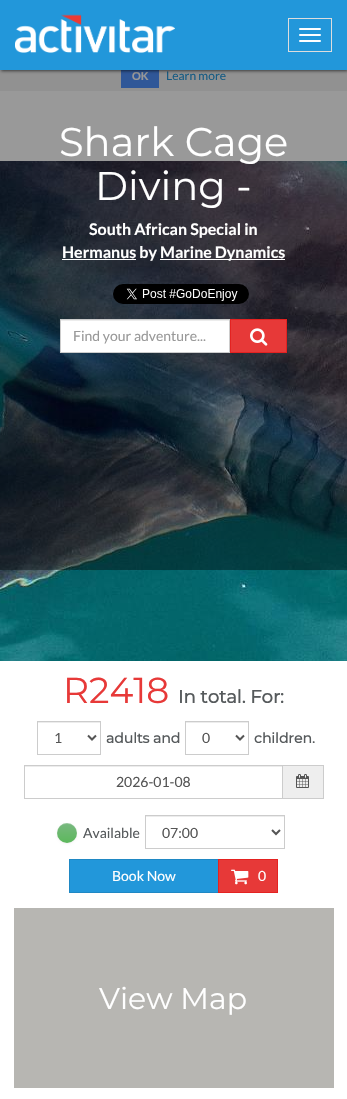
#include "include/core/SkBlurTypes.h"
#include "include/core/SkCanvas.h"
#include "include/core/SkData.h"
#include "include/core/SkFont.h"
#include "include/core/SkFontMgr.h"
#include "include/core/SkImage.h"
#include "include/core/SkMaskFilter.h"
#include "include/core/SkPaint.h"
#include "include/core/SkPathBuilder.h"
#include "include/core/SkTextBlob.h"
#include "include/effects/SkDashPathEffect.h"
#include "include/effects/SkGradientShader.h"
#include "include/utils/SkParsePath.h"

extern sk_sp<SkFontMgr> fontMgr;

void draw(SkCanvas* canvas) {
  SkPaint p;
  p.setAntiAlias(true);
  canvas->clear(SK_ColorWHITE);
  p.setColor(SkColorSetRGB(242, 242, 242));
  canvas->drawRect(SkRect::MakeLTRB(0, 70, 347, 91), p);
  p.setColor(SkColorSetRGB(77, 144, 254));
  canvas->drawRect(SkRect::MakeLTRB(121, 70, 159, 88), p);
  canvas->drawImageRect(SkImages::DeferredFromEncodedData(SkData::MakeFromFileName("images/2.png")), SkRect::MakeLTRB(0, 161, 347, 661), SkSamplingOptions());
  p.setColor(SkColorSetRGB(236, 236, 236));
  canvas->drawRect(SkRect::MakeLTRB(38, 722, 100, 723), p);
  p.setStyle(SkPaint::kStroke_Style);
  p.setStrokeWidth(1);
  p.setColor(SkColorSetRGB(204, 204, 204));
  canvas->drawRect(SkRect::MakeLTRB(37.5f, 721.5f, 100.5f, 754.5f), p);
  p.setStrokeWidth(2);
  p.setColor(SkColorSetRGB(85, 85, 85));
  canvas->drawPath(SkPathBuilder().moveTo(88, 735.5f).lineTo(92, 739.5f).lineTo(96, 735.5f).detach(), p);
  p.setStyle(SkPaint::kFill_Style);
  p.setColor(SkColorSetRGB(236, 236, 236));
  canvas->drawRect(SkRect::MakeLTRB(186, 722, 248, 723), p);
  p.setStyle(SkPaint::kStroke_Style);
  p.setStrokeWidth(1);
  p.setColor(SkColorSetRGB(204, 204, 204));
  canvas->drawRect(SkRect::MakeLTRB(185.5f, 721.5f, 248.5f, 754.5f), p);
  p.setStrokeWidth(2);
  p.setColor(SkColorSetRGB(85, 85, 85));
  canvas->drawPath(SkPathBuilder().moveTo(236, 735.5f).lineTo(240, 739.5f).lineTo(244, 735.5f).detach(), p);
  p.setStyle(SkPaint::kFill_Style);
  p.setColor(SkColorSetRGB(236, 236, 236));
  canvas->drawRect(SkRect::MakeLTRB(25, 766, 282, 767), p);
  p.setStyle(SkPaint::kStroke_Style);
  p.setStrokeWidth(1);
  p.setColor(SkColorSetRGB(204, 204, 204));
  canvas->drawRect(SkRect::MakeLTRB(24.5f, 765.5f, 282.5f, 798.5f), p);
  p.setStyle(SkPaint::kFill_Style);
  p.setColor(SkColorSetRGB(238, 238, 238));
  canvas->drawRect(SkRect::MakeLTRB(283, 766, 323, 798), p);
  p.setColor(SkColorSetRGB(204, 204, 204));
  canvas->drawRect(SkRect::MakeLTRB(283, 765, 324, 766), p);
  canvas->drawRect(SkRect::MakeLTRB(323, 765, 324, 799), p);
  canvas->drawRect(SkRect::MakeLTRB(283, 798, 324, 799), p);
  canvas->drawImageRect(SkImages::DeferredFromEncodedData(SkData::MakeFromFileName("images/5.png")), SkRect::MakeLTRB(296, 774, 309, 788), SkSamplingOptions());
  p.setColor(SkColorSetARGB(13, 0, 0, 0));
  p.setMaskFilter(SkMaskFilter::MakeBlur(kNormal_SkBlurStyle, 1));
  canvas->drawRoundRect(SkRect::MakeLTRB(57, 824, 77, 844), 10, 10, p);
  p.setMaskFilter(nullptr);
  {
    const SkColor colors[] = {SkColorSetRGB(121, 184, 128), SkColorSetRGB(92, 184, 92)};
    const float stops[] = {0, 1};
    const SkPoint ends[] = {{67, 823}, {67, 843}};
    p.setShader(SkGradientShader::MakeLinear(ends, colors, stops, 2, SkTileMode::kClamp));
    p.setAlpha(255);
  }
  canvas->drawCircle(67, 833, 10, p);
  p.setShader(nullptr);
  p.setColor(SkColorSetARGB(51, 255, 255, 255));
  canvas->drawPath(SkPathBuilder().moveTo(67, 824).cubicTo(74.5f, 824, 77.5f, 830, 76.5f, 836).cubicTo(77, 833.5f, 77, 831, 76, 829).cubicTo(71.5f, 817.5f, 54, 824, 57.5f, 836).cubicTo(56.5f, 830, 59.5f, 824, 67, 824).close().detach(), p);
  p.setColor(SkColorSetRGB(236, 236, 236));
  canvas->drawRect(SkRect::MakeLTRB(146, 816, 284, 817), p);
  p.setStyle(SkPaint::kStroke_Style);
  p.setColor(SkColorSetRGB(204, 204, 204));
  canvas->drawRect(SkRect::MakeLTRB(145.5f, 815.5f, 284.5f, 848.5f), p);
  p.setStrokeWidth(2);
  p.setColor(SkColorSetRGB(85, 85, 85));
  canvas->drawPath(SkPathBuilder().moveTo(272, 830).lineTo(276, 834).lineTo(280, 830).detach(), p);
  p.setStyle(SkPaint::kFill_Style);
  p.setColor(SkColorSetRGB(34, 151, 218));
  canvas->drawRect(SkRect::MakeLTRB(69.5f, 859.5f, 218.5f, 892.5f), p);
  p.setStyle(SkPaint::kStroke_Style);
  p.setStrokeWidth(1);
  p.setColor(SkColorSetRGB(31, 136, 196));
  canvas->drawRect(SkRect::MakeLTRB(69.5f, 859.5f, 218.5f, 892.5f), p);
  p.setStyle(SkPaint::kFill_Style);
  p.setColor(SkColorSetRGB(231, 57, 56));
  canvas->drawRect(SkRect::MakeLTRB(218.5f, 859.5f, 277.5f, 892.5f), p);
  p.setStyle(SkPaint::kStroke_Style);
  p.setColor(SkColorSetRGB(228, 34, 33));
  canvas->drawRect(SkRect::MakeLTRB(218.5f, 859.5f, 277.5f, 892.5f), p);
  canvas->drawImageRect(SkImages::DeferredFromEncodedData(SkData::MakeFromFileName("images/6.png")), SkRect::MakeLTRB(231, 869, 249, 885), SkSamplingOptions());
  p.setStyle(SkPaint::kFill_Style);
  p.setColor(SkColorSetRGB(183, 182, 178));
  canvas->drawRect(SkRect::MakeLTRB(14, 908, 334, 1088), p);
  SkFont font1(fontMgr->matchFamilyStyle("Lato", SkFontStyle::Bold()), 11);
  font1.setSubpixel(true);
  p.setColor(SK_ColorWHITE);
  canvas->drawString("OK", 132, 80, font1, p);
  SkFont font2(fontMgr->matchFamilyStyle("Lato", SkFontStyle::Normal()), 12);
  font2.setSubpixel(true);
  p.setColor(SkColorSetRGB(34, 151, 218));
  canvas->drawString("Learn more", 166, 80, font2, p);
  p.setColor(SkColorSetARGB(102, 0, 0, 0));
  canvas->drawRect(SkRect::MakeLTRB(0, 70, 347, 570), p);
  p.setColor(SkColorSetARGB(153, 0, 0, 0));
  p.setMaskFilter(SkMaskFilter::MakeBlur(kNormal_SkBlurStyle, 1.5f));
  canvas->drawRect(SkRect::MakeLTRB(1, 1, 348, 71), p);
  p.setMaskFilter(nullptr);
  p.setColor(SkColorSetRGB(34, 151, 218));
  canvas->drawRect(SkRect::MakeLTRB(0, 0, 347, 70), p);
  p.setStyle(SkPaint::kStroke_Style);
  p.setColor(SkColorSetRGB(221, 221, 221));
  canvas->drawRect(SkRect::MakeLTRB(288.5f, 18.5f, 331.5f, 51.5f), p);
  p.setStyle(SkPaint::kFill_Style);
  p.setColor(SK_ColorWHITE);
  canvas->drawRoundRect(SkRect::MakeLTRB(299, 40, 321, 42), 1, 1, p);
  canvas->drawRoundRect(SkRect::MakeLTRB(299, 34, 321, 36), 1, 1, p);
  canvas->drawRoundRect(SkRect::MakeLTRB(299, 28, 321, 30), 1, 1, p);
  canvas->drawImageRect(SkImages::DeferredFromEncodedData(SkData::MakeFromFileName("images/1.png")), SkRect::MakeLTRB(15, 14, 175, 53), SkSamplingOptions());
  SkFont font3(fontMgr->matchFamilyStyle("Montserrat", SkFontStyle(100, SkFontStyle::kNormal_Width, SkFontStyle::kUpright_Slant)), 40);
  font3.setSubpixel(true);
  canvas->drawString("Shark Cage", 59, 156, font3, p);
  canvas->drawString("Diving -", 95, 200, font3, p);
  SkFont font4(fontMgr->matchFamilyStyle("Lato", SkFontStyle::Bold()), 16);
  font4.setSubpixel(true);
  canvas->drawString("South African Special in", 89, 235, font4, p);
  canvas->drawRect(SkRect::MakeLTRB(62, 259, 136, 260), p);
  canvas->drawString("Hermanus by", 62, 258, font4, p);
  canvas->drawRect(SkRect::MakeLTRB(160, 259, 285, 260), p);
  canvas->drawString("Marine Dynamics", 160, 258, font4, p);
  canvas->drawImageRect(SkImages::DeferredFromEncodedData(SkData::MakeFromFileName("images/3.png")), SkRect::MakeLTRB(113, 284, 249, 304), SkSamplingOptions());
  canvas->drawRect(SkRect::MakeLTRB(61, 321, 229, 352), p);
  p.setColor(SkColorSetRGB(236, 236, 236));
  canvas->drawRect(SkRect::MakeLTRB(61, 320, 229, 321), p);
  p.setStyle(SkPaint::kStroke_Style);
  p.setColor(SkColorSetRGB(204, 204, 204));
  canvas->drawRect(SkRect::MakeLTRB(60.5f, 319.5f, 229.5f, 352.5f), p);
  SkFont font5(fontMgr->matchFamilyStyle("Lato", SkFontStyle::Normal()), 14);
  font5.setSubpixel(true);
  p.setStyle(SkPaint::kFill_Style);
  p.setColor(SkColorSetRGB(153, 153, 153));
  canvas->drawString("Find your adventure...", 73, 341, font5, p);
  p.setColor(SkColorSetRGB(231, 57, 56));
  canvas->drawRect(SkRect::MakeLTRB(230.5f, 319.5f, 286.5f, 352.5f), p);
  p.setStyle(SkPaint::kStroke_Style);
  p.setColor(SkColorSetRGB(228, 34, 33));
  canvas->drawRect(SkRect::MakeLTRB(230.5f, 319.5f, 286.5f, 352.5f), p);
  canvas->drawImageRect(SkImages::DeferredFromEncodedData(SkData::MakeFromFileName("images/4.png")), SkRect::MakeLTRB(250, 328, 268, 346), SkSamplingOptions());
  SkFont font6(fontMgr->matchFamilyStyle("Montserrat", SkFontStyle(100, SkFontStyle::kNormal_Width, SkFontStyle::kUpright_Slant)), 36);
  font6.setSubpixel(true);
  p.setStyle(SkPaint::kFill_Style);
  p.setColor(SkColorSetRGB(231, 57, 56));
  canvas->drawString("R2418", 63, 703, font6, p);
  SkFont font7(fontMgr->matchFamilyStyle("Montserrat", SkFontStyle::Bold()), 18);
  font7.setSubpixel(true);
  p.setColor(SkColorSetRGB(86, 90, 92));
  canvas->drawString("In total. For:", 178, 703, font7, p);
  p.setColor(SkColorSetRGB(85, 85, 85));
  canvas->drawString("1", 54, 743, font5, p);
  SkFont font8(fontMgr->matchFamilyStyle("Montserrat", SkFontStyle::Bold()), 14);
  font8.setSubpixel(true);
  p.setColor(SkColorSetRGB(86, 90, 92));
  canvas->drawString("adults and", 106, 743, font8, p);
  p.setColor(SkColorSetRGB(85, 85, 85));
  canvas->drawString("0", 202, 743, font5, p);
  p.setColor(SkColorSetRGB(86, 90, 92));
  canvas->drawString("children.", 254, 743, font8, p);
  p.setColor(SkColorSetRGB(85, 85, 85));
  canvas->drawString("2026-01-08", 116, 787, font5, p);
  p.setColor(SkColorSetRGB(86, 90, 92));
  canvas->drawString("Available", 83, 838, font5, p);
  p.setColor(SkColorSetRGB(85, 85, 85));
  canvas->drawString("07:00", 162, 838, font5, p);
  p.setColor(SK_ColorWHITE);
  canvas->drawString("Book Now", 112, 881, font5, p);
  canvas->drawString("0", 258, 881, font5, p);
  SkFont font9(fontMgr->matchFamilyStyle("Montserrat", SkFontStyle(100, SkFontStyle::kNormal_Width, SkFontStyle::kUpright_Slant)), 30);
  font9.setSubpixel(true);
  canvas->drawString("View Map", 99, 1009, font9, p);
}
